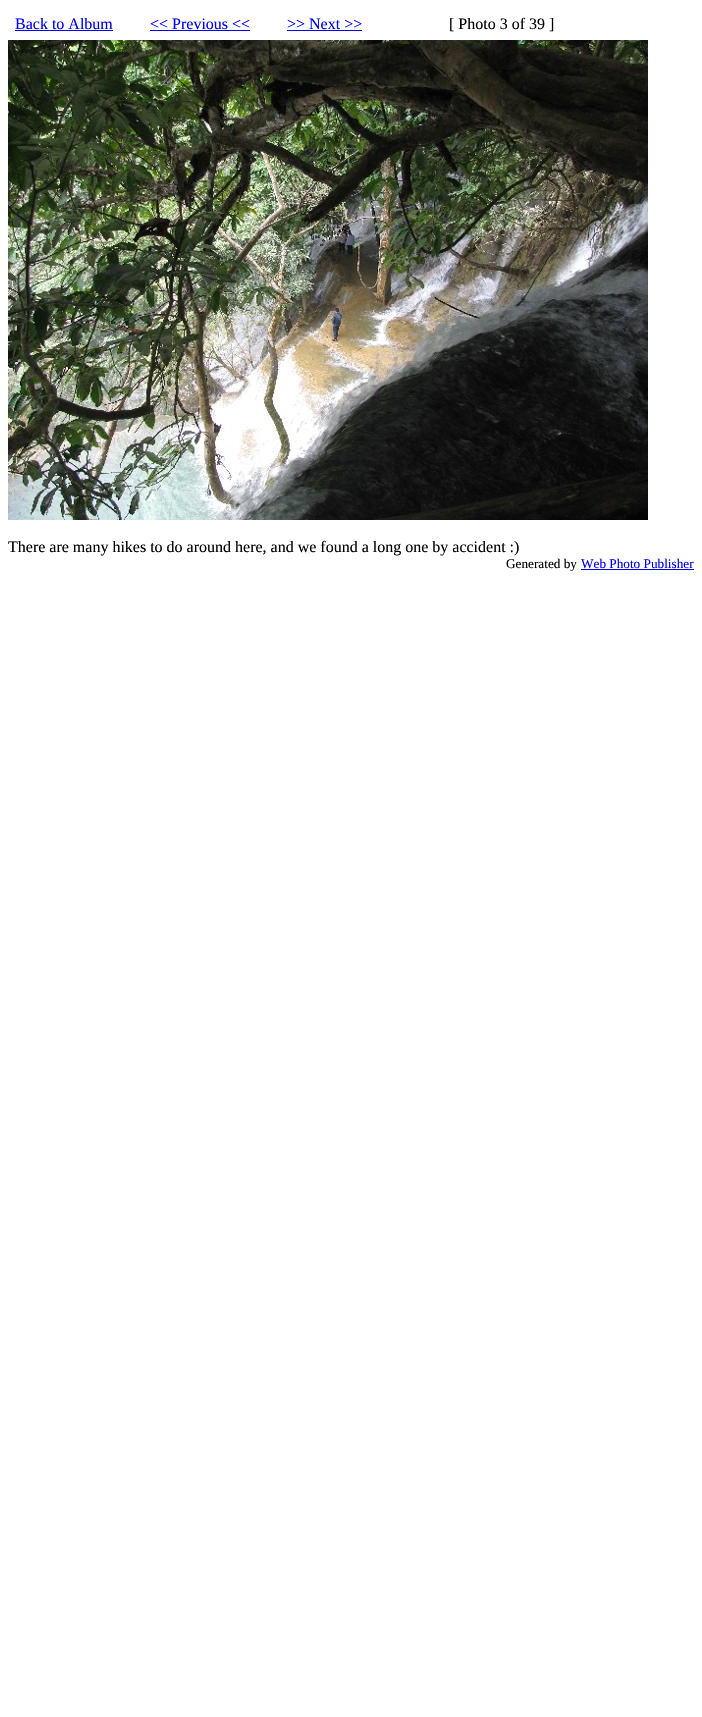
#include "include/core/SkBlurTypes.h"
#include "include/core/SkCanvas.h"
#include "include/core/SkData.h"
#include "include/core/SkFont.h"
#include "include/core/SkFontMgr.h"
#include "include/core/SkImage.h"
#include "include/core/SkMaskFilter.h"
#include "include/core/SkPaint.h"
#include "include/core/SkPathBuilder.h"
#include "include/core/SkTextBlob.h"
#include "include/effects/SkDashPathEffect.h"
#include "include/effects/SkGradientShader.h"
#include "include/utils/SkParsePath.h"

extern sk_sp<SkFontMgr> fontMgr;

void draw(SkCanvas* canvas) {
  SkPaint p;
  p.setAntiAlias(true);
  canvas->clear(SK_ColorWHITE);
  p.setColor(SkColorSetRGB(0, 0, 238));
  canvas->drawRect(SkRect::MakeLTRB(15, 30, 113, 31), p);
  canvas->drawRect(SkRect::MakeLTRB(150, 30, 250, 31), p);
  canvas->drawRect(SkRect::MakeLTRB(287, 30, 362, 31), p);
  canvas->drawImageRect(SkImages::DeferredFromEncodedData(SkData::MakeFromFileName("images/1.png")), SkRect::MakeLTRB(8, 40, 648, 520), SkSamplingOptions());
  canvas->drawRect(SkRect::MakeLTRB(581, 569, 694, 570), p);
  SkFont font1(fontMgr->matchFamilyStyle("Liberation Serif", SkFontStyle::Normal()), 16);
  font1.setSubpixel(true);
  canvas->drawString("Back to Album", 15, 29, font1, p);
  canvas->drawString("<< Previous <<", 150, 29, font1, p);
  canvas->drawString(">> Next >>", 287, 29, font1, p);
  p.setColor(SK_ColorBLACK);
  canvas->drawString("[ Photo 3 of 39 ]", 449, 29, font1, p);
  canvas->drawString("There are many hikes to do around here, and we found a long one by accident :)", 8, 552, font1, p);
  SkFont font2(fontMgr->matchFamilyStyle("Liberation Serif", SkFontStyle::Normal()), 13.25f);
  font2.setSubpixel(true);
  canvas->drawString("Generated by", 506, 568, font2, p);
  p.setColor(SkColorSetRGB(0, 0, 238));
  canvas->drawString("Web Photo Publisher", 581, 568, font2, p);
}
